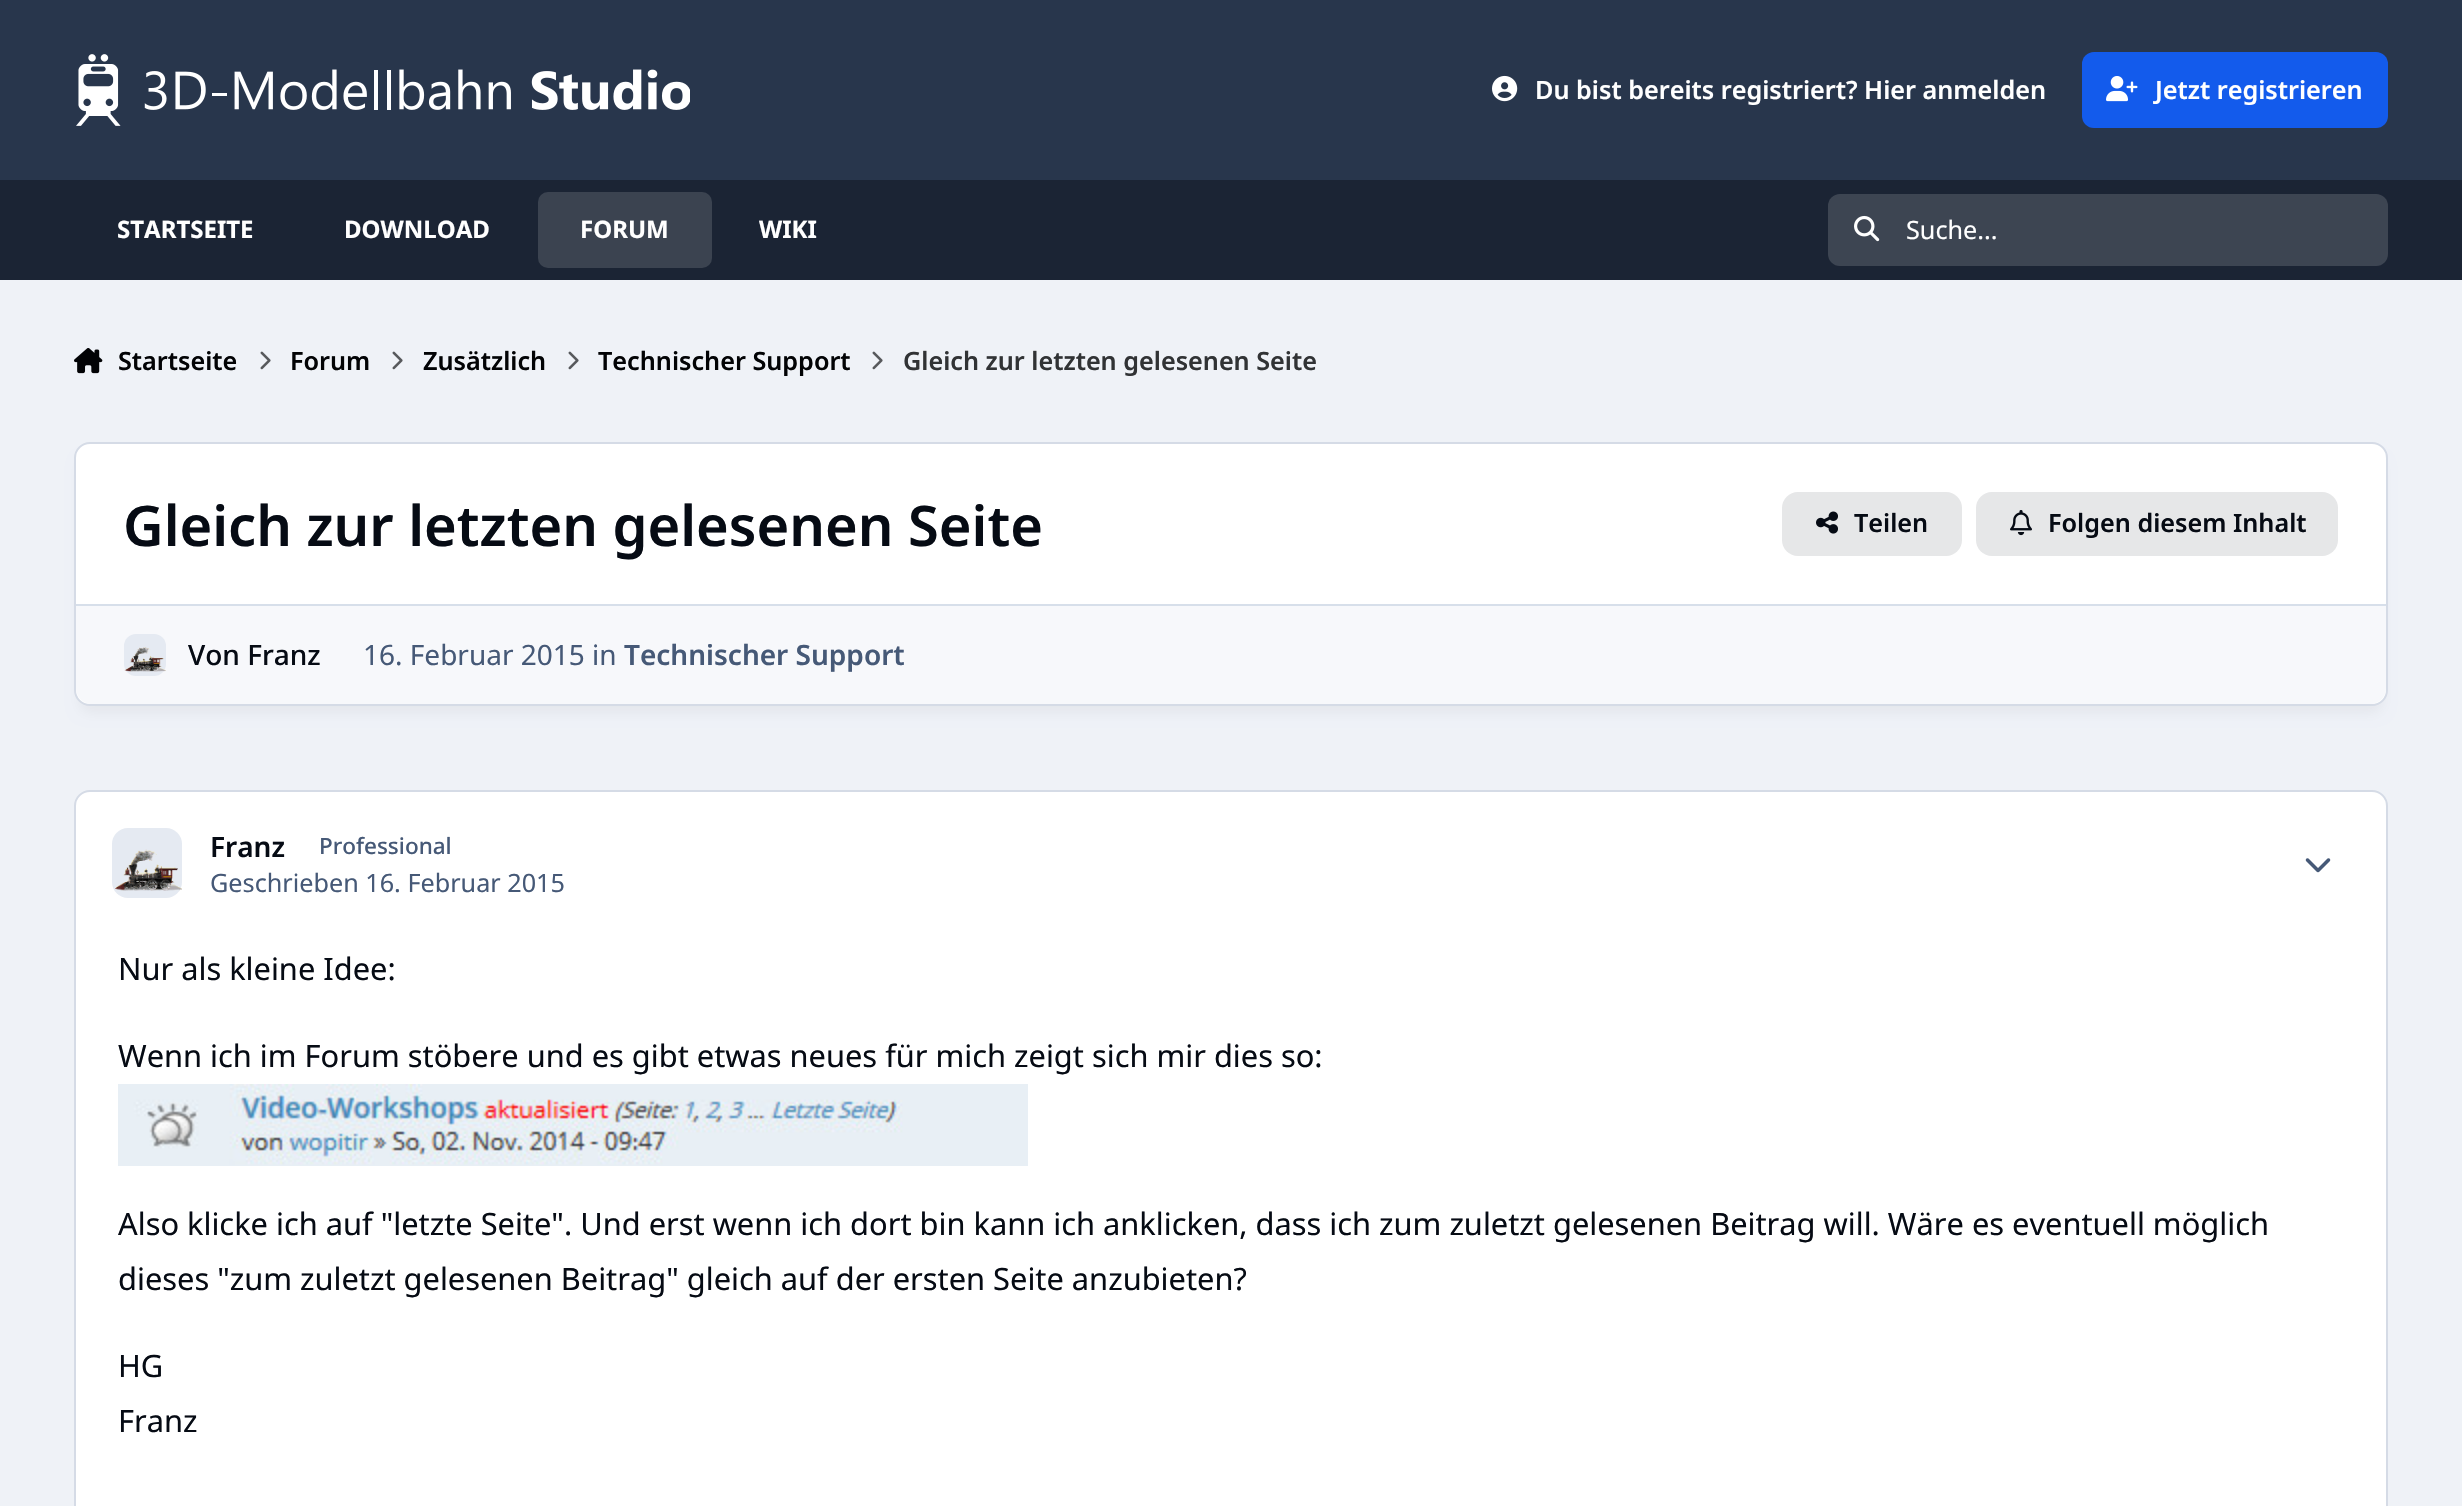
#include "include/core/SkBlurTypes.h"
#include "include/core/SkCanvas.h"
#include "include/core/SkData.h"
#include "include/core/SkFont.h"
#include "include/core/SkFontMgr.h"
#include "include/core/SkImage.h"
#include "include/core/SkMaskFilter.h"
#include "include/core/SkPaint.h"
#include "include/core/SkPathBuilder.h"
#include "include/core/SkTextBlob.h"
#include "include/effects/SkDashPathEffect.h"
#include "include/effects/SkGradientShader.h"
#include "include/utils/SkParsePath.h"

extern sk_sp<SkFontMgr> fontMgr;

void draw(SkCanvas* canvas) {
  SkPaint p;
  p.setAntiAlias(true);
  canvas->clear(SkColorSetRGB(239, 242, 247));
  p.setColor(SkColorSetRGB(40, 54, 76));
  canvas->drawRect(SkRect::MakeLTRB(0, 0, 2462, 180), p);
  canvas->drawImageRect(SkImages::DeferredFromEncodedData(SkData::MakeFromFileName("images/1.png")), SkRect::MakeLTRB(76, 54, 690, 126), SkSamplingOptions());
  canvas->drawImageRect(SkImages::DeferredFromEncodedData(SkData::MakeFromFileName("images/2.png")), SkRect::MakeLTRB(1492, 75, 1518, 102), SkSamplingOptions());
  p.setColor(SkColorSetRGB(19, 91, 236));
  canvas->drawRoundRect(SkRect::MakeLTRB(2082, 52, 2388, 128), 12, 12, p);
  canvas->drawImageRect(SkImages::DeferredFromEncodedData(SkData::MakeFromFileName("images/3.png")), SkRect::MakeLTRB(2106, 76, 2138, 102), SkSamplingOptions());
  p.setColor(SkColorSetRGB(27, 36, 52));
  canvas->drawRect(SkRect::MakeLTRB(0, 180, 2462, 280), p);
  p.setColor(SkColorSetRGB(59, 67, 80));
  canvas->drawRoundRect(SkRect::MakeLTRB(538, 192, 712, 268), 10, 10, p);
  p.setColor(SkColorSetRGB(61, 69, 82));
  canvas->drawRoundRect(SkRect::MakeLTRB(1828, 194, 2388, 266), 12, 12, p);
  canvas->drawImageRect(SkImages::DeferredFromEncodedData(SkData::MakeFromFileName("images/4.png")), SkRect::MakeLTRB(1854, 215, 1880, 242), SkSamplingOptions());
  canvas->drawImageRect(SkImages::DeferredFromEncodedData(SkData::MakeFromFileName("images/5.png")), SkRect::MakeLTRB(74, 348, 103, 374), SkSamplingOptions());
  canvas->drawImageRect(SkImages::DeferredFromEncodedData(SkData::MakeFromFileName("images/6.png")), SkRect::MakeLTRB(260, 351, 271, 370), SkSamplingOptions());
  canvas->drawImageRect(SkImages::DeferredFromEncodedData(SkData::MakeFromFileName("images/6.png")), SkRect::MakeLTRB(392, 351, 403, 370), SkSamplingOptions());
  canvas->drawImageRect(SkImages::DeferredFromEncodedData(SkData::MakeFromFileName("images/6.png")), SkRect::MakeLTRB(568, 351, 579, 370), SkSamplingOptions());
  canvas->drawImageRect(SkImages::DeferredFromEncodedData(SkData::MakeFromFileName("images/6.png")), SkRect::MakeLTRB(872, 351, 883, 370), SkSamplingOptions());
  p.setColor(SkColorSetARGB(13, 1, 3, 10));
  p.setMaskFilter(SkMaskFilter::MakeBlur(kNormal_SkBlurStyle, 7));
  canvas->drawRoundRect(SkRect::MakeLTRB(80, 460, 2382, 712), 10, 10, p);
  p.setMaskFilter(nullptr);
  p.setColor(SK_ColorWHITE);
  canvas->drawRoundRect(SkRect::MakeLTRB(75, 443, 2387, 705), 15, 15, p);
  p.setStyle(SkPaint::kStroke_Style);
  p.setStrokeWidth(2);
  p.setColor(SkColorSetRGB(213, 219, 230));
  canvas->drawRoundRect(SkRect::MakeLTRB(75, 443, 2387, 705), 15, 15, p);
  p.setStyle(SkPaint::kFill_Style);
  p.setColor(SkColorSetRGB(230, 231, 232));
  canvas->drawRoundRect(SkRect::MakeLTRB(1782, 492, 1962, 556), 16, 16, p);
  canvas->drawImageRect(SkImages::DeferredFromEncodedData(SkData::MakeFromFileName("images/7.png")), SkRect::MakeLTRB(1816, 511, 1838, 534), SkSamplingOptions());
  canvas->drawRoundRect(SkRect::MakeLTRB(1976, 492, 2338, 556), 16, 16, p);
  canvas->drawImageRect(SkImages::DeferredFromEncodedData(SkData::MakeFromFileName("images/8.png")), SkRect::MakeLTRB(2010, 510, 2032, 536), SkSamplingOptions());
  p.setColor(SkColorSetRGB(247, 248, 251));
  canvas->drawPath(SkPathBuilder().moveTo(76, 604).lineTo(2386, 604).lineTo(2386, 688).cubicTo(2386, 697, 2379, 704, 2370, 704).lineTo(92, 704).cubicTo(83, 704, 76, 697, 76, 688).close().detach(), p);
  p.setColor(SkColorSetRGB(215, 223, 234));
  canvas->drawRect(SkRect::MakeLTRB(76, 604, 2386, 606), p);
  p.setColor(SkColorSetRGB(229, 234, 242));
  canvas->drawRoundRect(SkRect::MakeLTRB(124, 634, 166, 676), 12, 12, p);
  canvas->drawImageRect(SkImages::DeferredFromEncodedData(SkData::MakeFromFileName("images/9.png")), SkRect::MakeLTRB(124, 647, 166, 672), SkSamplingOptions());
  p.setColor(SK_ColorWHITE);
  canvas->drawRoundRect(SkRect::MakeLTRB(75, 791, 2387, 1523), 15, 15, p);
  p.setStyle(SkPaint::kStroke_Style);
  p.setColor(SkColorSetRGB(213, 219, 230));
  canvas->drawRoundRect(SkRect::MakeLTRB(75, 791, 2387, 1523), 15, 15, p);
  p.setStyle(SkPaint::kFill_Style);
  p.setColor(SkColorSetRGB(229, 234, 242));
  canvas->drawRoundRect(SkRect::MakeLTRB(112, 828, 182, 898), 16, 16, p);
  canvas->drawImageRect(SkImages::DeferredFromEncodedData(SkData::MakeFromFileName("images/10.png")), SkRect::MakeLTRB(115, 849, 182, 891), SkSamplingOptions());
  canvas->drawImageRect(SkImages::DeferredFromEncodedData(SkData::MakeFromFileName("images/11.png")), SkRect::MakeLTRB(2305, 858, 2331, 873), SkSamplingOptions());
  canvas->drawImageRect(SkImages::DeferredFromEncodedData(SkData::MakeFromFileName("images/12.png")), SkRect::MakeLTRB(118, 1084, 1028, 1166), SkSamplingOptions());
  SkFont font1(fontMgr->matchFamilyStyle("Noto Sans", SkFontStyle(600, SkFontStyle::kNormal_Width, SkFontStyle::kUpright_Slant)), 25.2f);
  font1.setSubpixel(true);
  p.setColor(SK_ColorWHITE);
  canvas->drawString("Du bist bereits registriert? Hier anmelden", 1535, 99, font1, p);
  canvas->drawString("Jetzt registrieren", 2155, 99, font1, p);
  SkFont font2(fontMgr->matchFamilyStyle("Noto Sans", SkFontStyle::Bold()), 24);
  font2.setSubpixel(true);
  canvas->drawString("STARTSEITE", 117, 238, font2, p);
  canvas->drawString("DOWNLOAD", 344, 238, font2, p);
  canvas->drawString("FORUM", 580, 238, font2, p);
  canvas->drawString("WIKI", 759, 238, font2, p);
  SkFont font3(fontMgr->matchFamilyStyle("Noto Sans", SkFontStyle::Normal()), 25.2f);
  font3.setSubpixel(true);
  canvas->drawString("Suche...", 1906, 239, font3, p);
  p.setColor(SkColorSetRGB(2, 3, 5));
  canvas->drawString("Startseite", 118, 370, font1, p);
  canvas->drawString("Forum", 290, 370, font1, p);
  canvas->drawString("Zusätzlich", 423, 370, font1, p);
  canvas->drawString("Technischer Support", 598, 370, font1, p);
  p.setColor(SkColorSetRGB(49, 51, 53));
  canvas->drawString("Gleich zur letzten gelesenen Seite", 903, 370, font1, p);
  SkFont font4(fontMgr->matchFamilyStyle("Noto Sans", SkFontStyle(600, SkFontStyle::kNormal_Width, SkFontStyle::kUpright_Slant)), 56);
  font4.setSubpixel(true);
  p.setColor(SkColorSetRGB(6, 11, 20));
  canvas->drawString("Gleich zur letzten gelesenen Seite", 123, 546, font4, p);
  canvas->drawString("Teilen", 1854, 532, font1, p);
  canvas->drawString("Folgen diesem Inhalt", 2048, 532, font1, p);
  SkFont font5(fontMgr->matchFamilyStyle("Noto Sans", SkFontStyle(500, SkFontStyle::kNormal_Width, SkFontStyle::kUpright_Slant)), 28);
  font5.setSubpixel(true);
  canvas->drawString("Von Franz", 188, 665, font5, p);
  SkFont font6(fontMgr->matchFamilyStyle("Noto Sans", SkFontStyle::Normal()), 28);
  font6.setSubpixel(true);
  p.setColor(SkColorSetRGB(70, 89, 119));
  canvas->drawString("16. Februar 2015 in", 363, 665, font6, p);
  SkFont font7(fontMgr->matchFamilyStyle("Noto Sans", SkFontStyle(600, SkFontStyle::kNormal_Width, SkFontStyle::kUpright_Slant)), 28);
  font7.setSubpixel(true);
  canvas->drawString("Technischer Support", 624, 665, font7, p);
  p.setColor(SkColorSetRGB(6, 11, 20));
  canvas->drawString("Franz", 210, 857, font7, p);
  SkFont font8(fontMgr->matchFamilyStyle("Noto Sans", SkFontStyle(500, SkFontStyle::kNormal_Width, SkFontStyle::kUpright_Slant)), 22.5f);
  font8.setSubpixel(true);
  p.setColor(SkColorSetRGB(70, 89, 119));
  canvas->drawString("Professional", 319, 854, font8, p);
  canvas->drawString("Geschrieben 16. Februar 2015", 210, 892, font3, p);
  SkFont font9(fontMgr->matchFamilyStyle("Noto Sans", SkFontStyle::Normal()), 30.8f);
  font9.setSubpixel(true);
  p.setColor(SkColorSetRGB(6, 11, 20));
  canvas->drawString("Nur als kleine Idee:", 118, 980, font9, p);
  canvas->drawString("Wenn ich im Forum stöbere und es gibt etwas neues für mich zeigt sich mir dies so:", 118, 1067, font9, p);
  canvas->drawString("Also klicke ich auf \"letzte Seite\". Und erst wenn ich dort bin kann ich anklicken, dass ich zum zuletzt gelesenen Beitrag will. Wäre es eventuell möglich", 118, 1235, font9, p);
  canvas->drawString("dieses \"zum zuletzt gelesenen Beitrag\" gleich auf der ersten Seite anzubieten?", 118, 1290, font9, p);
  canvas->drawString("HG", 118, 1377, font9, p);
  canvas->drawString("Franz", 118, 1432, font9, p);
}
